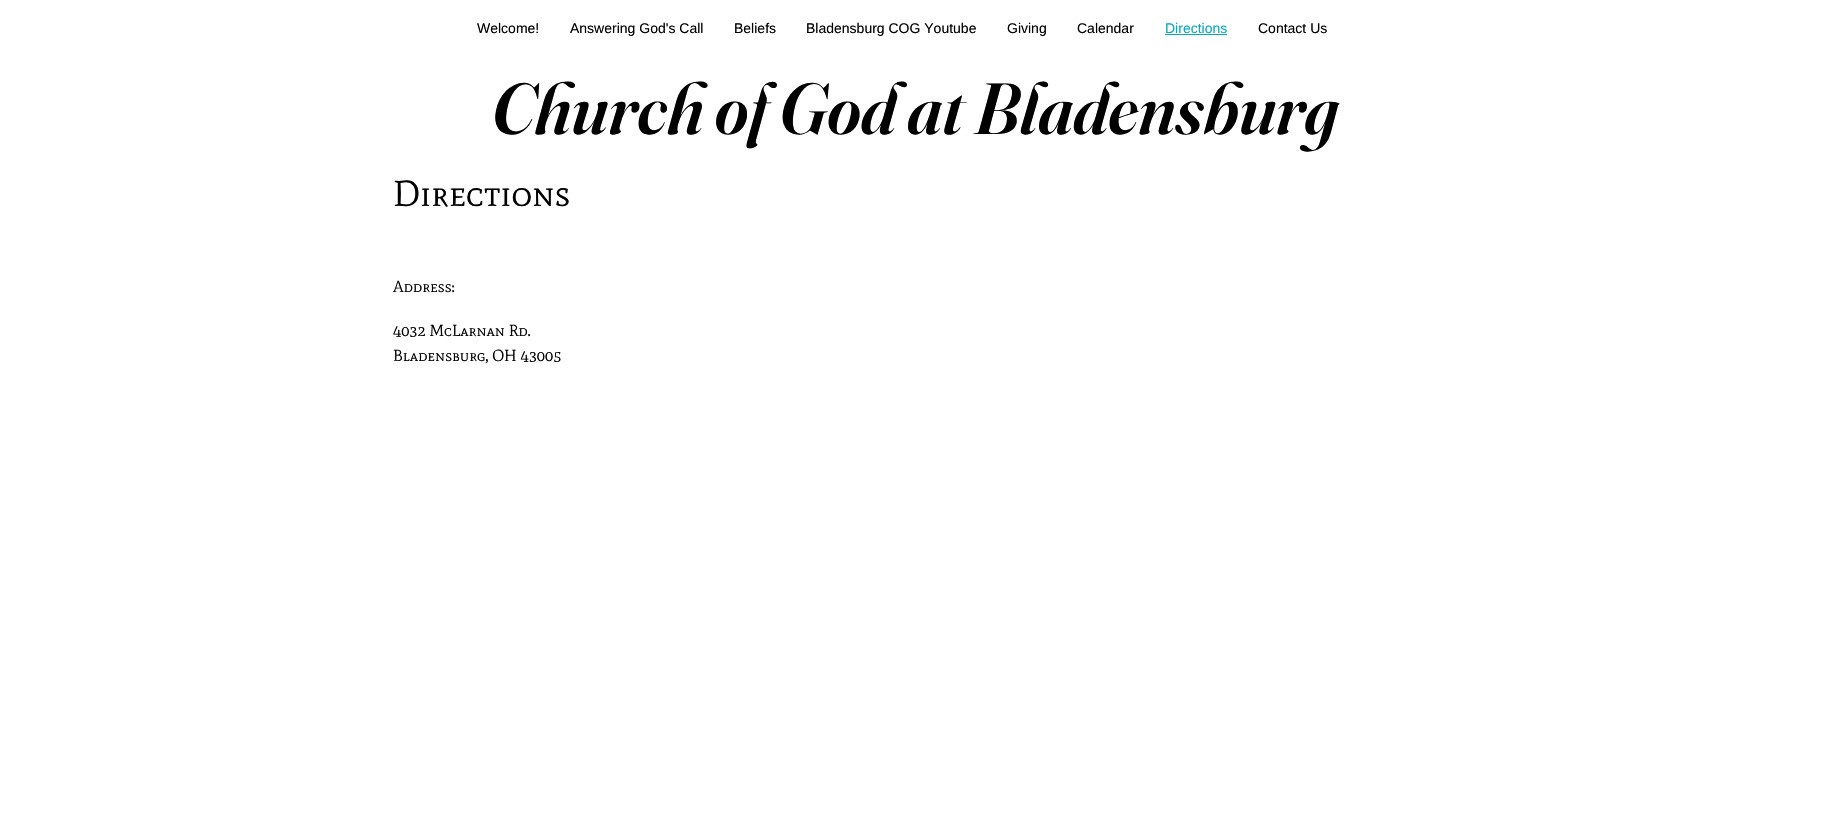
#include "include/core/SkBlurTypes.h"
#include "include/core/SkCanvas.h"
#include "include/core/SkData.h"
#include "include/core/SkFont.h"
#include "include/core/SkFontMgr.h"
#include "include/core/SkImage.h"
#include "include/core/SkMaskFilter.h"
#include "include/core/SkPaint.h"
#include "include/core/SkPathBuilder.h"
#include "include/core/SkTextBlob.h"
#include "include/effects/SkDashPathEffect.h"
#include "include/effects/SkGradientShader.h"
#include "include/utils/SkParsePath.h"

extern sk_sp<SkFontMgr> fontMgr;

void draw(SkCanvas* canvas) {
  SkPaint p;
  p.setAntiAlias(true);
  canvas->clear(SK_ColorWHITE);
  p.setColor(SkColorSetRGB(9, 171, 192));
  canvas->drawRect(SkRect::MakeLTRB(1165, 34, 1227, 35), p);
  SkFont font1(fontMgr->matchFamilyStyle("Liberation Sans", SkFontStyle::Normal()), 14);
  font1.setSubpixel(true);
  p.setColor(SK_ColorBLACK);
  canvas->drawString("Welcome!", 477, 33, font1, p);
  canvas->drawString("Answering God's Call", 570, 33, font1, p);
  canvas->drawString("Beliefs", 734, 33, font1, p);
  canvas->drawString("Bladensburg COG Youtube", 806, 33, font1, p);
  canvas->drawString("Giving", 1007, 33, font1, p);
  canvas->drawString("Calendar", 1077, 33, font1, p);
  p.setColor(SkColorSetRGB(9, 171, 192));
  canvas->drawString("Directions", 1165, 33, font1, p);
  p.setColor(SK_ColorBLACK);
  canvas->drawString("Contact Us", 1258, 33, font1, p);
  SkFont font2(fontMgr->matchFamilyStyle("Fraunces", SkFontStyle(600, SkFontStyle::kNormal_Width, SkFontStyle::kItalic_Slant)), 72);
  font2.setSubpixel(true);
  canvas->drawString("Church of God at Bladensburg", 491, 134, font2, p);
  SkFont font3(fontMgr->matchFamilyStyle("Mate SC", SkFontStyle::Normal()), 36);
  font3.setSubpixel(true);
  canvas->drawString("Directions", 393, 206, font3, p);
  SkFont font4(fontMgr->matchFamilyStyle("Mate SC", SkFontStyle::Normal()), 16);
  font4.setSubpixel(true);
  canvas->drawString("Address:", 393, 292, font4, p);
  canvas->drawString("4032 McLarnan Rd.", 393, 336, font4, p);
  canvas->drawString("Bladensburg, OH 43005", 393, 361, font4, p);
}
